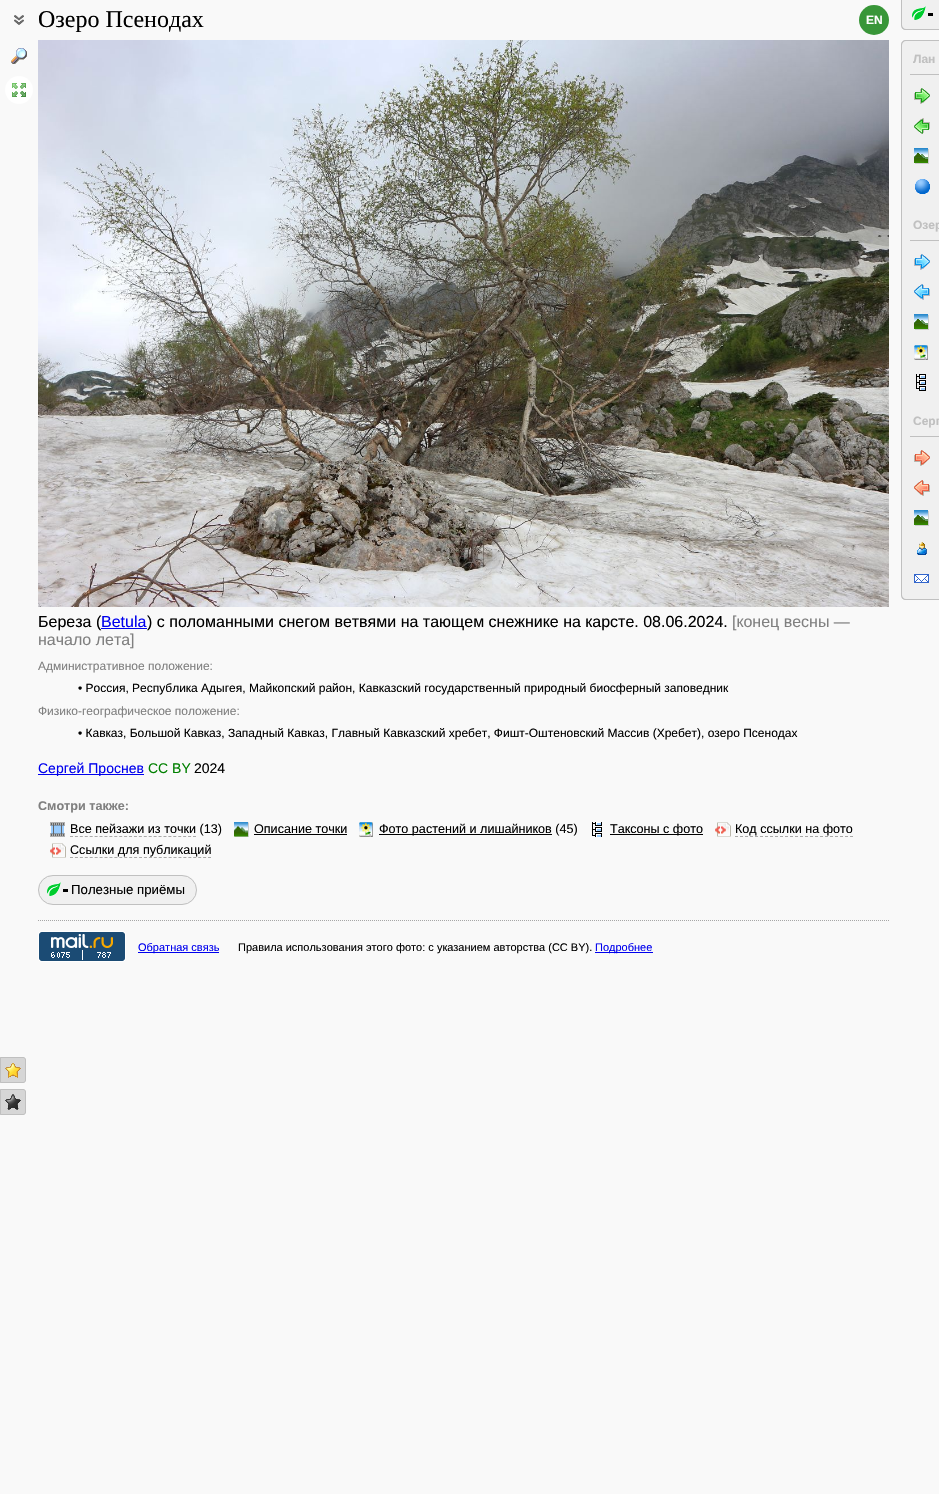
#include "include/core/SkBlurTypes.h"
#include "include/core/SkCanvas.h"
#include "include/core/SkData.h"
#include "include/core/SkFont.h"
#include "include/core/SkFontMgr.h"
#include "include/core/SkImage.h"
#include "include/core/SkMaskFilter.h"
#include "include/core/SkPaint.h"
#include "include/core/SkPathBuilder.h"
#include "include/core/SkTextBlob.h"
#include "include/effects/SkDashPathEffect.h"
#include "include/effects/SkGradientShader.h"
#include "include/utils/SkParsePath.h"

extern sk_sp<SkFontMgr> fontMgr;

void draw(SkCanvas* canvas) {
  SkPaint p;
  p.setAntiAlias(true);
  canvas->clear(SkColorSetRGB(249, 249, 249));
  canvas->drawImageRect(SkImages::DeferredFromEncodedData(SkData::MakeFromFileName("images/1.png")), SkRect::MakeLTRB(14, 15, 24, 25), SkSamplingOptions());
  p.setColor(SkColorSetRGB(56, 150, 56));
  canvas->drawCircle(874, 20, 15, p);
  canvas->drawImageRect(SkImages::DeferredFromEncodedData(SkData::MakeFromFileName("images/2.png")), SkRect::MakeLTRB(11, 48, 27, 64), SkSamplingOptions());
  p.setColor(SK_ColorWHITE);
  canvas->drawCircle(19, 90, 14, p);
  canvas->drawImageRect(SkImages::DeferredFromEncodedData(SkData::MakeFromFileName("images/3.png")), SkRect::MakeLTRB(12, 83, 26, 97), SkSamplingOptions());
  p.setColor(SkColorSetRGB(214, 214, 214));
  canvas->drawPath(SkPathBuilder().moveTo(0, 1057).lineTo(23, 1057).cubicTo(24.5f, 1057, 26, 1058.5f, 26, 1060).lineTo(26, 1080).cubicTo(26, 1081.5f, 24.5f, 1083, 23, 1083).lineTo(0, 1083).close().detach(), p);
  canvas->drawImageRect(SkImages::DeferredFromEncodedData(SkData::MakeFromFileName("images/4.png")), SkRect::MakeLTRB(5, 1063, 21, 1078), SkSamplingOptions());
  p.setStyle(SkPaint::kStroke_Style);
  p.setStrokeWidth(1);
  p.setColor(SkColorSetRGB(192, 192, 192));
  canvas->drawPath(SkPathBuilder().moveTo(0.5f, 1057.5f).lineTo(23, 1057.5f).cubicTo(24.5f, 1057.5f, 25.5f, 1058.5f, 25.5f, 1060).lineTo(25.5f, 1080).cubicTo(25.5f, 1081.5f, 24.5f, 1082.5f, 23, 1082.5f).lineTo(0.5f, 1082.5f).close().detach(), p);
  p.setStyle(SkPaint::kFill_Style);
  p.setColor(SkColorSetRGB(214, 214, 214));
  canvas->drawPath(SkPathBuilder().moveTo(0, 1089).lineTo(23, 1089).cubicTo(24.5f, 1089, 26, 1090.5f, 26, 1092).lineTo(26, 1112).cubicTo(26, 1113.5f, 24.5f, 1115, 23, 1115).lineTo(0, 1115).close().detach(), p);
  canvas->drawImageRect(SkImages::DeferredFromEncodedData(SkData::MakeFromFileName("images/5.png")), SkRect::MakeLTRB(5, 1094, 21, 1110), SkSamplingOptions());
  p.setStyle(SkPaint::kStroke_Style);
  p.setColor(SkColorSetRGB(192, 192, 192));
  canvas->drawPath(SkPathBuilder().moveTo(0.5f, 1089.5f).lineTo(23, 1089.5f).cubicTo(24.5f, 1089.5f, 25.5f, 1090.5f, 25.5f, 1092).lineTo(25.5f, 1112).cubicTo(25.5f, 1113.5f, 24.5f, 1114.5f, 23, 1114.5f).lineTo(0.5f, 1114.5f).close().detach(), p);
  p.setStyle(SkPaint::kFill_Style);
  p.setColor(SkColorSetRGB(240, 240, 240));
  canvas->drawPath(SkPathBuilder().moveTo(901, 0).lineTo(939, 0).lineTo(939, 30).lineTo(906, 30).cubicTo(903, 30, 901, 28, 901, 25).close().detach(), p);
  canvas->drawImageRect(SkImages::DeferredFromEncodedData(SkData::MakeFromFileName("images/6.png")), SkRect::MakeLTRB(912, 6, 926, 20), SkSamplingOptions());
  p.setColor(SkColorSetRGB(192, 192, 192));
  canvas->drawPath(SkPathBuilder(SkPathFillType::kEvenOdd).moveTo(901, 0).lineTo(939, 0).lineTo(939, 30).lineTo(906, 30).cubicTo(903, 30, 901, 28, 901, 25).close().moveTo(902, 0).lineTo(939, 0).lineTo(939, 29).lineTo(906, 29).cubicTo(904, 29, 902, 27, 902, 25).close().detach(), p);
  p.setColor(SK_ColorBLACK);
  canvas->drawRect(SkRect::MakeLTRB(928, 13, 933, 16), p);
  p.setColor(SkColorSetRGB(240, 240, 240));
  canvas->drawPath(SkPathBuilder().moveTo(906, 40).lineTo(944, 40).lineTo(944, 600).lineTo(906, 600).cubicTo(903, 600, 901, 598, 901, 595).lineTo(901, 45).cubicTo(901, 42, 903, 40, 906, 40).close().detach(), p);
  p.setColor(SkColorSetRGB(192, 192, 192));
  canvas->drawPath(SkPathBuilder(SkPathFillType::kEvenOdd).moveTo(906, 40).lineTo(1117, 40).lineTo(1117, 600).lineTo(906, 600).cubicTo(903, 600, 901, 598, 901, 595).lineTo(901, 45).cubicTo(901, 42, 903, 40, 906, 40).close().moveTo(906, 41).lineTo(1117, 41).lineTo(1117, 599).lineTo(906, 599).cubicTo(904, 599, 902, 597, 902, 595).lineTo(902, 45).cubicTo(902, 43, 904, 41, 906, 41).close().detach(), p);
  canvas->drawRect(SkRect::MakeLTRB(910, 74, 939, 75), p);
  canvas->drawImageRect(SkImages::DeferredFromEncodedData(SkData::MakeFromFileName("images/7.png")), SkRect::MakeLTRB(914, 88, 930, 104), SkSamplingOptions());
  canvas->drawImageRect(SkImages::DeferredFromEncodedData(SkData::MakeFromFileName("images/8.png")), SkRect::MakeLTRB(914, 118, 930, 134), SkSamplingOptions());
  canvas->drawImageRect(SkImages::DeferredFromEncodedData(SkData::MakeFromFileName("images/9.png")), SkRect::MakeLTRB(914, 148, 929, 164), SkSamplingOptions());
  canvas->drawImageRect(SkImages::DeferredFromEncodedData(SkData::MakeFromFileName("images/10.png")), SkRect::MakeLTRB(915, 179, 930, 194), SkSamplingOptions());
  canvas->drawRect(SkRect::MakeLTRB(910, 240, 939, 241), p);
  canvas->drawImageRect(SkImages::DeferredFromEncodedData(SkData::MakeFromFileName("images/11.png")), SkRect::MakeLTRB(914, 254, 930, 270), SkSamplingOptions());
  canvas->drawImageRect(SkImages::DeferredFromEncodedData(SkData::MakeFromFileName("images/12.png")), SkRect::MakeLTRB(914, 284, 930, 300), SkSamplingOptions());
  canvas->drawImageRect(SkImages::DeferredFromEncodedData(SkData::MakeFromFileName("images/9.png")), SkRect::MakeLTRB(914, 314, 929, 330), SkSamplingOptions());
  canvas->drawImageRect(SkImages::DeferredFromEncodedData(SkData::MakeFromFileName("images/13.png")), SkRect::MakeLTRB(914, 345, 928, 360), SkSamplingOptions());
  canvas->drawImageRect(SkImages::DeferredFromEncodedData(SkData::MakeFromFileName("images/14.png")), SkRect::MakeLTRB(916, 374, 926, 391), SkSamplingOptions());
  canvas->drawRect(SkRect::MakeLTRB(910, 436, 939, 437), p);
  canvas->drawImageRect(SkImages::DeferredFromEncodedData(SkData::MakeFromFileName("images/15.png")), SkRect::MakeLTRB(914, 450, 930, 466), SkSamplingOptions());
  canvas->drawImageRect(SkImages::DeferredFromEncodedData(SkData::MakeFromFileName("images/16.png")), SkRect::MakeLTRB(914, 480, 930, 496), SkSamplingOptions());
  canvas->drawImageRect(SkImages::DeferredFromEncodedData(SkData::MakeFromFileName("images/9.png")), SkRect::MakeLTRB(914, 510, 929, 526), SkSamplingOptions());
  canvas->drawImageRect(SkImages::DeferredFromEncodedData(SkData::MakeFromFileName("images/17.png")), SkRect::MakeLTRB(917, 542, 927, 555), SkSamplingOptions());
  canvas->drawImageRect(SkImages::DeferredFromEncodedData(SkData::MakeFromFileName("images/18.png")), SkRect::MakeLTRB(914, 574, 929, 583), SkSamplingOptions());
  canvas->drawImageRect(SkImages::DeferredFromEncodedData(SkData::MakeFromFileName("images/19.png")), SkRect::MakeLTRB(38, 40, 889, 607), SkSamplingOptions());
  p.setColor(SkColorSetRGB(0, 0, 238));
  canvas->drawRect(SkRect::MakeLTRB(38, 774, 144, 775), p);
  canvas->drawImageRect(SkImages::DeferredFromEncodedData(SkData::MakeFromFileName("images/20.png")), SkRect::MakeLTRB(50, 822, 65, 837), SkSamplingOptions());
  p.setStyle(SkPaint::kStroke_Style);
  p.setColor(SkColorSetRGB(169, 169, 169));
  p.setPathEffect(SkDashPathEffect::Make({{3, 1.92f}}, 0));
  canvas->drawPath(SkPathBuilder().moveTo(70, 836.5f).lineTo(196, 836.5f).detach(), p);
  p.setPathEffect(nullptr);
  canvas->drawImageRect(SkImages::DeferredFromEncodedData(SkData::MakeFromFileName("images/21.png")), SkRect::MakeLTRB(234, 822, 249, 837), SkSamplingOptions());
  p.setStyle(SkPaint::kFill_Style);
  p.setColor(SK_ColorBLACK);
  canvas->drawRect(SkRect::MakeLTRB(254, 834, 347, 835), p);
  canvas->drawImageRect(SkImages::DeferredFromEncodedData(SkData::MakeFromFileName("images/13.png")), SkRect::MakeLTRB(359, 822, 373, 837), SkSamplingOptions());
  canvas->drawRect(SkRect::MakeLTRB(379, 834, 552, 835), p);
  canvas->drawImageRect(SkImages::DeferredFromEncodedData(SkData::MakeFromFileName("images/22.png")), SkRect::MakeLTRB(592, 822, 602, 837), SkSamplingOptions());
  canvas->drawRect(SkRect::MakeLTRB(610, 834, 703, 835), p);
  canvas->drawImageRect(SkImages::DeferredFromEncodedData(SkData::MakeFromFileName("images/23.png")), SkRect::MakeLTRB(715, 822, 731, 837), SkSamplingOptions());
  p.setStyle(SkPaint::kStroke_Style);
  p.setColor(SkColorSetRGB(169, 169, 169));
  p.setPathEffect(SkDashPathEffect::Make({{3, 2}}, 0));
  canvas->drawPath(SkPathBuilder().moveTo(735, 836.5f).lineTo(853, 836.5f).detach(), p);
  p.setPathEffect(nullptr);
  canvas->drawImageRect(SkImages::DeferredFromEncodedData(SkData::MakeFromFileName("images/23.png")), SkRect::MakeLTRB(50, 843, 66, 858), SkSamplingOptions());
  p.setPathEffect(SkDashPathEffect::Make({{3, 1.93f}}, 0));
  canvas->drawPath(SkPathBuilder().moveTo(70, 857.5f).lineTo(211, 857.5f).detach(), p);
  p.setPathEffect(nullptr);
  p.setStyle(SkPaint::kFill_Style);
  p.setColor(SkColorSetRGB(240, 240, 240));
  canvas->drawRoundRect(SkRect::MakeLTRB(38, 875, 197, 905), 15, 15, p);
  p.setColor(SK_ColorBLACK);
  canvas->drawRect(SkRect::MakeLTRB(63, 889, 68, 892), p);
  p.setStyle(SkPaint::kStroke_Style);
  p.setColor(SkColorSetRGB(192, 192, 192));
  canvas->drawRoundRect(SkRect::MakeLTRB(38.5f, 875.5f, 196.5f, 904.5f), 14.5f, 14.5f, p);
  canvas->drawImageRect(SkImages::DeferredFromEncodedData(SkData::MakeFromFileName("images/6.png")), SkRect::MakeLTRB(47, 882, 61, 896), SkSamplingOptions());
  p.setColor(SkColorSetRGB(166, 166, 166));
  p.setPathEffect(SkDashPathEffect::Make({{1, 1}}, 0));
  canvas->drawPath(SkPathBuilder().moveTo(38, 920.5f).lineTo(889, 920.5f).detach(), p);
  p.setPathEffect(nullptr);
  canvas->drawImageRect(SkImages::DeferredFromEncodedData(SkData::MakeFromFileName("images/24.png")), SkRect::MakeLTRB(38, 931, 126, 962), SkSamplingOptions());
  p.setStyle(SkPaint::kFill_Style);
  p.setColor(SkColorSetRGB(0, 0, 238));
  canvas->drawRect(SkRect::MakeLTRB(138, 952, 219, 953), p);
  canvas->drawRect(SkRect::MakeLTRB(595, 952, 653, 953), p);
  SkFont font1(fontMgr->matchFamilyStyle("Liberation Serif", SkFontStyle::Normal()), 24);
  font1.setSubpixel(true);
  p.setColor(SK_ColorBLACK);
  canvas->drawString("Озеро Псенодах", 38, 27, font1, p);
  SkFont font2(fontMgr->matchFamilyStyle("Liberation Sans", SkFontStyle::Bold()), 12);
  font2.setSubpixel(true);
  p.setColor(SkColorSetRGB(254, 254, 254));
  canvas->drawString("EN", 866, 24, font2, p);
  p.setColor(SkColorSetRGB(192, 192, 192));
  canvas->drawString("Лан", 913, 63, font2, p);
  canvas->drawString("Озер", 913, 229, font2, p);
  canvas->drawString("Серг", 913, 425, font2, p);
  SkFont font3(fontMgr->matchFamilyStyle("Liberation Sans", SkFontStyle::Normal()), 16);
  font3.setSubpixel(true);
  p.setColor(SK_ColorBLACK);
  canvas->drawString("Береза (", 38, 627, font3, p);
  p.setColor(SkColorSetRGB(0, 0, 238));
  canvas->drawString("Betula", 101, 627, font3, p);
  canvas->drawRect(SkRect::MakeLTRB(101, 628, 147, 629), p);
  p.setColor(SK_ColorBLACK);
  canvas->drawString(") с поломанными снегом ветвями на тающем снежнике на карсте. 08.06.2024.", 147, 627, font3, p);
  p.setColor(SkColorSetRGB(128, 128, 128));
  canvas->drawString("[конец весны —", 732, 627, font3, p);
  canvas->drawString("начало лета]", 38, 645, font3, p);
  SkFont font4(fontMgr->matchFamilyStyle("Liberation Sans", SkFontStyle::Normal()), 12);
  font4.setSubpixel(true);
  canvas->drawString("Административное положение:", 38, 670, font4, p);
  p.setColor(SK_ColorBLACK);
  canvas->drawString("• Россия, Республика Адыгея, Майкопский район, Кавказский государственный природный биосферный заповедник", 78, 692, font4, p);
  p.setColor(SkColorSetRGB(128, 128, 128));
  canvas->drawString("Физико-географическое положение:", 38, 715, font4, p);
  p.setColor(SK_ColorBLACK);
  canvas->drawString("• Кавказ, Большой Кавказ, Западный Кавказ, Главный Кавказский хребет, Фишт-Оштеновский Массив (Хребет), озеро Псенодах", 78, 737, font4, p);
  SkFont font5(fontMgr->matchFamilyStyle("Liberation Sans", SkFontStyle::Normal()), 14);
  font5.setSubpixel(true);
  p.setColor(SkColorSetRGB(0, 0, 238));
  canvas->drawString("Сергей Проснев", 38, 773, font5, p);
  p.setColor(SkColorSetRGB(0, 128, 0));
  canvas->drawString("CC BY", 148, 773, font5, p);
  p.setColor(SK_ColorBLACK);
  canvas->drawString("2024", 194, 773, font5, p);
  SkFont font6(fontMgr->matchFamilyStyle("Liberation Sans", SkFontStyle::Bold()), 12.6f);
  font6.setSubpixel(true);
  p.setColor(SkColorSetRGB(128, 128, 128));
  canvas->drawString("Смотри также:", 38, 810, font6, p);
  SkFont font7(fontMgr->matchFamilyStyle("Liberation Sans", SkFontStyle::Normal()), 12.6f);
  font7.setSubpixel(true);
  p.setColor(SK_ColorBLACK);
  canvas->drawString("Все пейзажи из точки (13)", 70, 833, font7, p);
  canvas->drawString("Описание точки", 254, 833, font7, p);
  canvas->drawString("Фото растений и лишайников (45)", 379, 833, font7, p);
  canvas->drawString("Таксоны с фото", 610, 833, font7, p);
  canvas->drawString("Код ссылки на фото", 735, 833, font7, p);
  canvas->drawString("Ссылки для публикаций", 70, 854, font7, p);
  SkFont font8(fontMgr->matchFamilyStyle("Liberation Sans", SkFontStyle::Normal()), 13.25f);
  font8.setSubpixel(true);
  canvas->drawString("Полезные приёмы", 71, 894, font8, p);
  SkFont font9(fontMgr->matchFamilyStyle("Liberation Sans", SkFontStyle::Normal()), 11);
  font9.setSubpixel(true);
  p.setColor(SkColorSetRGB(0, 0, 238));
  canvas->drawString("Обратная связь", 138, 951, font9, p);
  p.setColor(SK_ColorBLACK);
  canvas->drawString("Правила использования этого фото: с указанием авторства (CC BY).", 238, 951, font9, p);
  p.setColor(SkColorSetRGB(0, 0, 238));
  canvas->drawString("Подробнее", 595, 951, font9, p);
}
